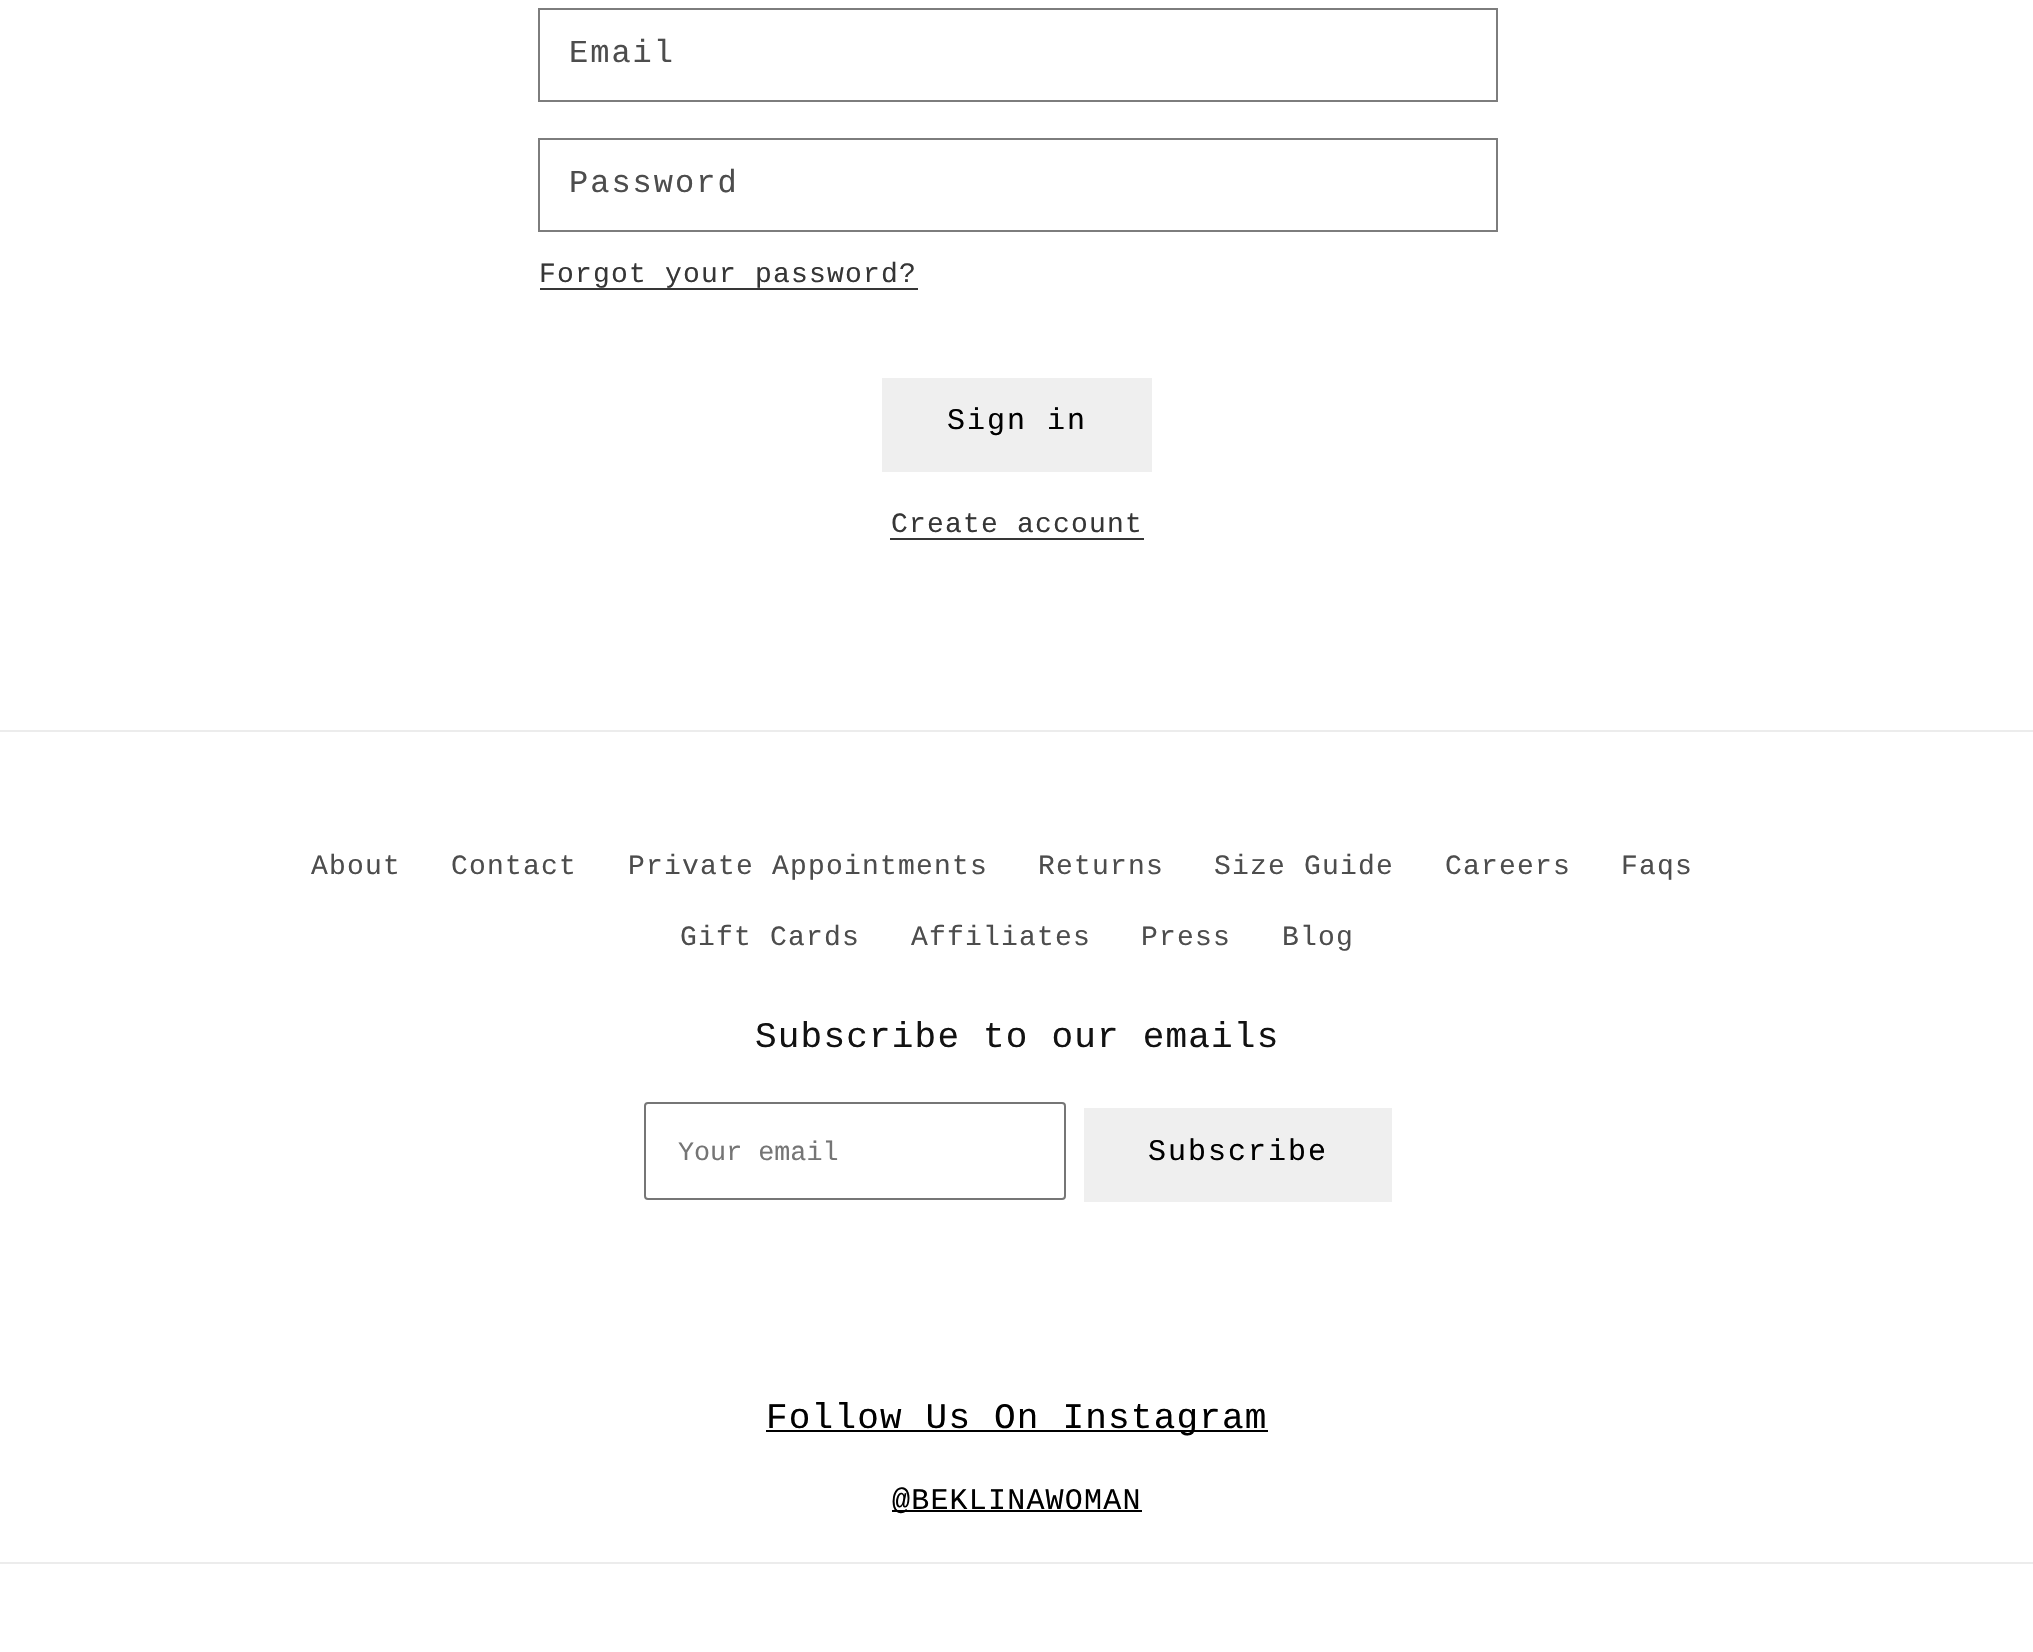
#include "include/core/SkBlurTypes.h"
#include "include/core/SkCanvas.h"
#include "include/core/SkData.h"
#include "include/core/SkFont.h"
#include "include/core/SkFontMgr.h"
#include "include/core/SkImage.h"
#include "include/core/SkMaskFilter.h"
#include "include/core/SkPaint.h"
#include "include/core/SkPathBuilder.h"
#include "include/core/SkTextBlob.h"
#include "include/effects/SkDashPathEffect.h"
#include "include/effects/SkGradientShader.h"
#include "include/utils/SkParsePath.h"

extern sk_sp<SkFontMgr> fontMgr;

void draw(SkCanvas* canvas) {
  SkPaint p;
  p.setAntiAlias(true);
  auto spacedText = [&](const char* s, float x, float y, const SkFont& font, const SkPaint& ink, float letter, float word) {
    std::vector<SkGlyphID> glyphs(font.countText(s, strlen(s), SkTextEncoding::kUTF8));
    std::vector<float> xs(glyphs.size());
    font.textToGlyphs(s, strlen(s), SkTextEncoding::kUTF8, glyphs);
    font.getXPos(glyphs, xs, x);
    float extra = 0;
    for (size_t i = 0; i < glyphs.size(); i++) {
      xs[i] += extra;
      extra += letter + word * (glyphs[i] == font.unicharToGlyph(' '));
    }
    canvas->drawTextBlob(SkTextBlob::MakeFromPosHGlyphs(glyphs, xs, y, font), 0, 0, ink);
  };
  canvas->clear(SK_ColorWHITE);
  p.setStyle(SkPaint::kStroke_Style);
  p.setStrokeWidth(2);
  p.setColor(SkColorSetRGB(125, 125, 125));
  canvas->drawRect(SkRect::MakeLTRB(539, 9, 1497, 101), p);
  canvas->drawRect(SkRect::MakeLTRB(539, 139, 1497, 231), p);
  p.setStyle(SkPaint::kFill_Style);
  p.setColor(SkColorSetRGB(54, 54, 54));
  canvas->drawRect(SkRect::MakeLTRB(540, 288, 918, 290), p);
  p.setStyle(SkPaint::kStroke_Style);
  p.setColor(SkColorSetRGB(239, 239, 239));
  canvas->drawRect(SkRect::MakeLTRB(883, 379, 1151, 471), p);
  p.setStyle(SkPaint::kFill_Style);
  canvas->drawRect(SkRect::MakeLTRB(884, 380, 1150, 470), p);
  p.setColor(SkColorSetRGB(54, 54, 54));
  canvas->drawRect(SkRect::MakeLTRB(890, 538, 1144, 540), p);
  p.setColor(SkColorSetRGB(236, 236, 236));
  canvas->drawRect(SkRect::MakeLTRB(0, 730, 2033, 732), p);
  p.setStyle(SkPaint::kStroke_Style);
  p.setColor(SkColorSetRGB(118, 118, 118));
  canvas->drawRoundRect(SkRect::MakeLTRB(645, 1103, 1065, 1199), 3, 3, p);
  p.setColor(SkColorSetRGB(239, 239, 239));
  canvas->drawRect(SkRect::MakeLTRB(1085, 1109, 1391, 1201), p);
  p.setStyle(SkPaint::kFill_Style);
  canvas->drawRect(SkRect::MakeLTRB(1086, 1110, 1390, 1200), p);
  p.setColor(SK_ColorBLACK);
  canvas->drawRect(SkRect::MakeLTRB(766, 1430, 1268, 1432), p);
  canvas->drawRect(SkRect::MakeLTRB(892, 1510, 1142, 1512), p);
  p.setColor(SkColorSetRGB(236, 236, 236));
  canvas->drawRect(SkRect::MakeLTRB(0, 1562, 2033, 1564), p);
  SkFont font1(fontMgr->matchFamilyStyle("Liberation Mono", SkFontStyle::Normal()), 32);
  font1.setSubpixel(true);
  p.setColor(SkColorSetRGB(77, 77, 77));
  spacedText("Email", 569, 62, font1, p, 2, 0);
  spacedText("Password", 569, 192, font1, p, 2, 0);
  SkFont font2(fontMgr->matchFamilyStyle("Liberation Mono", SkFontStyle::Normal()), 28);
  font2.setSubpixel(true);
  p.setColor(SkColorSetRGB(54, 54, 54));
  spacedText("Forgot your password?", 539, 282, font2, p, 1.2f, 0);
  SkFont font3(fontMgr->matchFamilyStyle("Liberation Mono", SkFontStyle::Normal()), 30);
  font3.setSubpixel(true);
  p.setColor(SK_ColorBLACK);
  spacedText("Sign in", 947, 429, font3, p, 2, 0);
  p.setColor(SkColorSetRGB(54, 54, 54));
  spacedText("Create account", 891, 532, font2, p, 1.2f, 0);
  p.setColor(SkColorSetRGB(77, 77, 77));
  spacedText("About", 311, 874, font2, p, 1.2f, 0);
  spacedText("Contact", 451, 874, font2, p, 1.2f, 0);
  spacedText("Private Appointments", 628, 874, font2, p, 1.2f, 0);
  spacedText("Returns", 1038, 874, font2, p, 1.2f, 0);
  spacedText("Size Guide", 1214, 874, font2, p, 1.2f, 0);
  spacedText("Careers", 1445, 874, font2, p, 1.2f, 0);
  spacedText("Faqs", 1621, 874, font2, p, 1.2f, 0);
  spacedText("Gift Cards", 680, 945, font2, p, 1.2f, 0);
  spacedText("Affiliates", 911, 945, font2, p, 1.2f, 0);
  spacedText("Press", 1141, 945, font2, p, 1.2f, 0);
  spacedText("Blog", 1282, 945, font2, p, 1.2f, 0);
  SkFont font4(fontMgr->matchFamilyStyle("Liberation Mono", SkFontStyle::Normal()), 36);
  font4.setSubpixel(true);
  p.setColor(SkColorSetRGB(18, 18, 18));
  spacedText("Subscribe to our emails", 755, 1047, font4, p, 1.2f, 0);
  SkFont font5(fontMgr->matchFamilyStyle("Liberation Mono", SkFontStyle::Normal()), 26.75f);
  font5.setSubpixel(true);
  p.setColor(SkColorSetRGB(117, 117, 117));
  canvas->drawString("Your email", 678, 1160, font5, p);
  p.setColor(SK_ColorBLACK);
  spacedText("Subscribe", 1148, 1160, font3, p, 2, 0);
  spacedText("Follow Us On Instagram", 766, 1428, font4, p, 1.2f, 0);
  spacedText("@BEKLINAWOMAN", 892, 1509, font3, p, 1.2f, 0);
}
